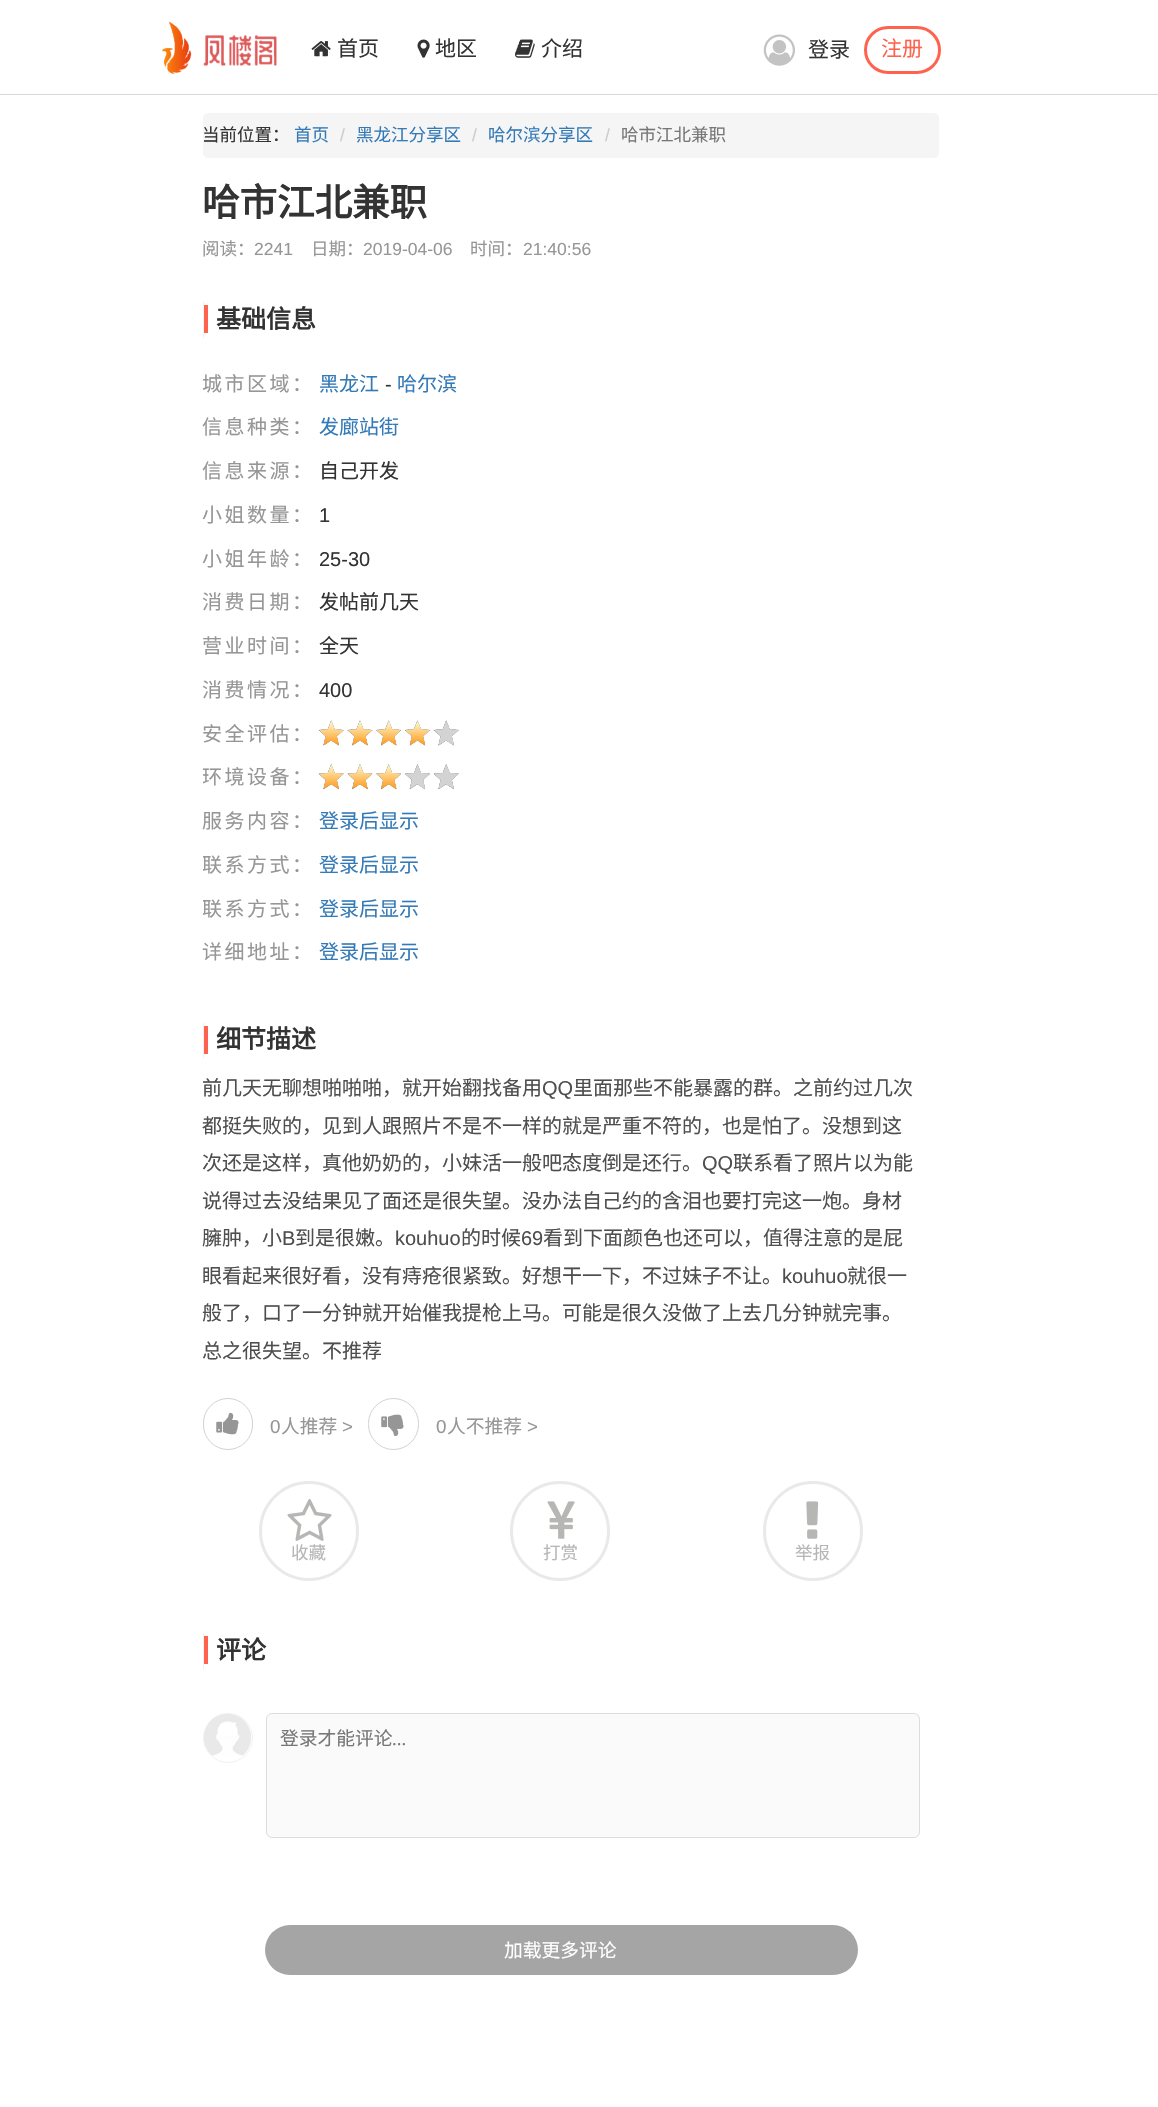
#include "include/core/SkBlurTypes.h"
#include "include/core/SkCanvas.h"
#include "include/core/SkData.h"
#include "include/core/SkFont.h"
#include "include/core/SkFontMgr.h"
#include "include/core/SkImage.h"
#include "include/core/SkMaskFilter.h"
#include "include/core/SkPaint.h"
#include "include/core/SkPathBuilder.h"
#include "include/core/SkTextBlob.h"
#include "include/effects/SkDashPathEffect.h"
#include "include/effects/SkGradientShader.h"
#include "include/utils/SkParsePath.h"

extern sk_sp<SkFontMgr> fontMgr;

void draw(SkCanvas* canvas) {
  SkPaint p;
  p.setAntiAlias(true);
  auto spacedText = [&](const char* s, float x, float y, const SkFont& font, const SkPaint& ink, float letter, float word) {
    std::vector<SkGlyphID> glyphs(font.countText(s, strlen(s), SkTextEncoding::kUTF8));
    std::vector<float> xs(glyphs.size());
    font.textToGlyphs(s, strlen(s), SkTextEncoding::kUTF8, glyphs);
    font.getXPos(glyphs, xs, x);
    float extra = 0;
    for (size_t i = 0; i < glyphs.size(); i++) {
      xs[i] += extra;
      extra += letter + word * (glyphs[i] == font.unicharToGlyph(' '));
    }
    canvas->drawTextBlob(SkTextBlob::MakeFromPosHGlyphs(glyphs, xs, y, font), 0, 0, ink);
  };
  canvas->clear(SK_ColorWHITE);
  p.setColor(SkColorSetRGB(216, 216, 216));
  canvas->drawRect(SkRect::MakeLTRB(0, 94, 1158, 95), p);
  canvas->drawImageRect(SkImages::DeferredFromEncodedData(SkData::MakeFromFileName("images/1.png")), SkRect::MakeLTRB(161, 21, 277, 74), SkSamplingOptions());
  canvas->drawImageRect(SkImages::DeferredFromEncodedData(SkData::MakeFromFileName("images/2.png")), SkRect::MakeLTRB(311, 41, 331, 57), SkSamplingOptions());
  canvas->drawImageRect(SkImages::DeferredFromEncodedData(SkData::MakeFromFileName("images/3.png")), SkRect::MakeLTRB(417, 39, 430, 58), SkSamplingOptions());
  canvas->drawImageRect(SkImages::DeferredFromEncodedData(SkData::MakeFromFileName("images/4.png")), SkRect::MakeLTRB(515, 39, 535, 58), SkSamplingOptions());
  canvas->drawImageRect(SkImages::DeferredFromEncodedData(SkData::MakeFromFileName("images/5.png")), SkRect::MakeLTRB(763, 34, 795, 66), SkSamplingOptions());
  p.setStyle(SkPaint::kStroke_Style);
  p.setStrokeWidth(3);
  p.setColor(SkColorSetRGB(255, 99, 79));
  canvas->drawRoundRect(SkRect::MakeLTRB(865.5f, 27.5f, 939.5f, 72.5f), 22.5f, 22.5f, p);
  p.setStyle(SkPaint::kFill_Style);
  p.setColor(SkColorSetRGB(245, 245, 245));
  canvas->drawRoundRect(SkRect::MakeLTRB(203, 113, 939, 158), 5, 5, p);
  p.setColor(SkColorSetRGB(241, 241, 241));
  canvas->drawRect(SkRect::MakeLTRB(203, 301, 204, 338), p);
  p.setColor(SkColorSetRGB(255, 99, 79));
  canvas->drawRect(SkRect::MakeLTRB(204, 305, 208, 333), p);
  canvas->drawImageRect(SkImages::DeferredFromEncodedData(SkData::MakeFromFileName("images/6.png")), SkRect::MakeLTRB(318, 720, 344, 746), SkSamplingOptions());
  canvas->drawImageRect(SkImages::DeferredFromEncodedData(SkData::MakeFromFileName("images/7.png")), SkRect::MakeLTRB(347, 720, 373, 746), SkSamplingOptions());
  canvas->drawImageRect(SkImages::DeferredFromEncodedData(SkData::MakeFromFileName("images/8.png")), SkRect::MakeLTRB(376, 720, 401, 746), SkSamplingOptions());
  canvas->drawImageRect(SkImages::DeferredFromEncodedData(SkData::MakeFromFileName("images/9.png")), SkRect::MakeLTRB(405, 720, 430, 746), SkSamplingOptions());
  canvas->drawImageRect(SkImages::DeferredFromEncodedData(SkData::MakeFromFileName("images/10.png")), SkRect::MakeLTRB(433, 720, 459, 746), SkSamplingOptions());
  canvas->drawImageRect(SkImages::DeferredFromEncodedData(SkData::MakeFromFileName("images/11.png")), SkRect::MakeLTRB(318, 764, 344, 790), SkSamplingOptions());
  canvas->drawImageRect(SkImages::DeferredFromEncodedData(SkData::MakeFromFileName("images/12.png")), SkRect::MakeLTRB(347, 764, 373, 790), SkSamplingOptions());
  canvas->drawImageRect(SkImages::DeferredFromEncodedData(SkData::MakeFromFileName("images/13.png")), SkRect::MakeLTRB(376, 764, 401, 790), SkSamplingOptions());
  canvas->drawImageRect(SkImages::DeferredFromEncodedData(SkData::MakeFromFileName("images/14.png")), SkRect::MakeLTRB(405, 764, 430, 790), SkSamplingOptions());
  canvas->drawImageRect(SkImages::DeferredFromEncodedData(SkData::MakeFromFileName("images/15.png")), SkRect::MakeLTRB(433, 764, 459, 790), SkSamplingOptions());
  p.setColor(SkColorSetRGB(241, 241, 241));
  canvas->drawRect(SkRect::MakeLTRB(203, 1023, 204, 1058), p);
  p.setColor(SkColorSetRGB(255, 99, 79));
  canvas->drawRect(SkRect::MakeLTRB(204, 1026, 208, 1054), p);
  p.setStyle(SkPaint::kStroke_Style);
  p.setStrokeWidth(1);
  p.setColor(SkColorSetRGB(210, 210, 210));
  canvas->drawRoundRect(SkRect::MakeLTRB(203.5f, 1398.5f, 252.5f, 1449.5f), 24.5f, 24.5f, p);
  canvas->drawImageRect(SkImages::DeferredFromEncodedData(SkData::MakeFromFileName("images/16.png")), SkRect::MakeLTRB(216, 1412, 239, 1435), SkSamplingOptions());
  canvas->drawRoundRect(SkRect::MakeLTRB(368.5f, 1398.5f, 418.5f, 1449.5f), 25, 25, p);
  canvas->drawImageRect(SkImages::DeferredFromEncodedData(SkData::MakeFromFileName("images/17.png")), SkRect::MakeLTRB(381, 1414, 404, 1436), SkSamplingOptions());
  canvas->drawImageRect(SkImages::DeferredFromEncodedData(SkData::MakeFromFileName("images/18.png")), SkRect::MakeLTRB(287, 1499, 332, 1541), SkSamplingOptions());
  p.setStrokeWidth(3);
  p.setColor(SkColorSetRGB(233, 233, 233));
  canvas->drawCircle(309, 1531, 48.5f, p);
  canvas->drawImageRect(SkImages::DeferredFromEncodedData(SkData::MakeFromFileName("images/19.png")), SkRect::MakeLTRB(547, 1501, 575, 1539), SkSamplingOptions());
  canvas->drawCircle(560, 1531, 48.5f, p);
  canvas->drawImageRect(SkImages::DeferredFromEncodedData(SkData::MakeFromFileName("images/20.png")), SkRect::MakeLTRB(806, 1501, 819, 1539), SkSamplingOptions());
  canvas->drawCircle(813, 1531, 48.5f, p);
  p.setStyle(SkPaint::kFill_Style);
  p.setColor(SkColorSetRGB(241, 241, 241));
  canvas->drawRect(SkRect::MakeLTRB(203, 1633, 204, 1669), p);
  p.setColor(SkColorSetRGB(255, 99, 79));
  canvas->drawRect(SkRect::MakeLTRB(204, 1636, 208, 1664), p);
  p.setStyle(SkPaint::kStroke_Style);
  p.setStrokeWidth(1);
  p.setColor(SkColorSetRGB(241, 241, 241));
  canvas->drawCircle(228, 1738, 24.5f, p);
  canvas->drawImageRect(SkImages::DeferredFromEncodedData(SkData::MakeFromFileName("images/21.png")), SkRect::MakeLTRB(204, 1714, 251, 1756), SkSamplingOptions());
  p.setStyle(SkPaint::kFill_Style);
  p.setColor(SkColorSetRGB(250, 250, 250));
  canvas->drawRoundRect(SkRect::MakeLTRB(266.5f, 1713.5f, 919.5f, 1837.5f), 5.5f, 5.5f, p);
  p.setStyle(SkPaint::kStroke_Style);
  p.setColor(SkColorSetRGB(221, 221, 221));
  canvas->drawRoundRect(SkRect::MakeLTRB(266.5f, 1713.5f, 919.5f, 1837.5f), 5.5f, 5.5f, p);
  p.setStyle(SkPaint::kFill_Style);
  p.setColor(SkColorSetRGB(165, 165, 165));
  canvas->drawRoundRect(SkRect::MakeLTRB(265, 1925, 858, 1975), 25, 25, p);
  SkFont font1(fontMgr->matchFamilyStyle("Noto Sans CJK SC", SkFontStyle::Normal()), 21);
  font1.setSubpixel(true);
  p.setColor(SkColorSetRGB(51, 51, 51));
  canvas->drawString("首页", 337, 56, font1, p);
  canvas->drawString("地区", 435, 56, font1, p);
  canvas->drawString("介绍", 541, 56, font1, p);
  canvas->drawString("登录", 808, 57, font1, p);
  p.setColor(SkColorSetRGB(255, 99, 79));
  canvas->drawString("注册", 881, 56, font1, p);
  SkFont font2(fontMgr->matchFamilyStyle("Noto Sans CJK SC", SkFontStyle::Normal()), 17.5f);
  font2.setSubpixel(true);
  p.setColor(SkColorSetRGB(51, 51, 51));
  canvas->drawString("当前位置：", 202, 141, font2, p);
  p.setColor(SkColorSetRGB(51, 122, 183));
  canvas->drawString("首页", 294, 141, font2, p);
  SkFont font3(fontMgr->matchFamilyStyle("Liberation Sans", SkFontStyle::Normal()), 17.5f);
  font3.setSubpixel(true);
  p.setColor(SkColorSetRGB(204, 204, 204));
  canvas->drawString("/", 340, 141, font3, p);
  p.setColor(SkColorSetRGB(51, 122, 183));
  canvas->drawString("黑龙江分享区", 356, 141, font2, p);
  p.setColor(SkColorSetRGB(204, 204, 204));
  canvas->drawString("/", 472, 141, font3, p);
  p.setColor(SkColorSetRGB(51, 122, 183));
  canvas->drawString("哈尔滨分享区", 488, 141, font2, p);
  p.setColor(SkColorSetRGB(204, 204, 204));
  canvas->drawString("/", 605, 141, font3, p);
  p.setColor(SkColorSetRGB(119, 119, 119));
  canvas->drawString("哈市江北兼职", 621, 141, font2, p);
  SkFont font4(fontMgr->matchFamilyStyle("Noto Sans CJK SC", SkFontStyle::Bold()), 37.5f);
  font4.setSubpixel(true);
  p.setColor(SkColorSetRGB(51, 51, 51));
  canvas->drawString("哈市江北兼职", 202, 216, font4, p);
  p.setColor(SkColorSetRGB(150, 150, 150));
  canvas->drawString("阅读：", 202, 255, font2, p);
  canvas->drawString("2241", 254, 255, font3, p);
  canvas->drawString("日期：", 311, 255, font2, p);
  canvas->drawString("2019-04-06", 363, 255, font3, p);
  canvas->drawString("时间：", 470, 255, font2, p);
  canvas->drawString("21:40:56", 523, 255, font3, p);
  SkFont font5(fontMgr->matchFamilyStyle("Noto Sans CJK SC", SkFontStyle::Bold()), 25);
  font5.setSubpixel(true);
  p.setColor(SkColorSetRGB(51, 51, 51));
  canvas->drawString("基础信息", 216, 328, font5, p);
  SkFont font6(fontMgr->matchFamilyStyle("Noto Sans CJK SC", SkFontStyle::Normal()), 20);
  font6.setSubpixel(true);
  p.setColor(SkColorSetRGB(150, 150, 150));
  spacedText("城市区域：", 202, 391, font6, p, 2.5f, 0);
  p.setColor(SkColorSetRGB(51, 122, 183));
  canvas->drawString("黑龙江", 319, 391, font6, p);
  SkFont font7(fontMgr->matchFamilyStyle("Liberation Sans", SkFontStyle::Normal()), 20);
  font7.setSubpixel(true);
  p.setColor(SkColorSetRGB(51, 51, 51));
  canvas->drawString("-", 385, 391, font7, p);
  p.setColor(SkColorSetRGB(51, 122, 183));
  canvas->drawString("哈尔滨", 397, 391, font6, p);
  p.setColor(SkColorSetRGB(150, 150, 150));
  spacedText("信息种类：", 202, 434, font6, p, 2.5f, 0);
  p.setColor(SkColorSetRGB(51, 122, 183));
  canvas->drawString("发廊站街", 319, 434, font6, p);
  p.setColor(SkColorSetRGB(150, 150, 150));
  spacedText("信息来源：", 202, 478, font6, p, 2.5f, 0);
  p.setColor(SkColorSetRGB(51, 51, 51));
  canvas->drawString("自己开发", 319, 478, font6, p);
  p.setColor(SkColorSetRGB(150, 150, 150));
  spacedText("小姐数量：", 202, 522, font6, p, 2.5f, 0);
  p.setColor(SkColorSetRGB(51, 51, 51));
  canvas->drawString("1", 319, 522, font7, p);
  p.setColor(SkColorSetRGB(150, 150, 150));
  spacedText("小姐年龄：", 202, 566, font6, p, 2.5f, 0);
  p.setColor(SkColorSetRGB(51, 51, 51));
  canvas->drawString("25-30", 319, 566, font7, p);
  p.setColor(SkColorSetRGB(150, 150, 150));
  spacedText("消费日期：", 202, 609, font6, p, 2.5f, 0);
  p.setColor(SkColorSetRGB(51, 51, 51));
  canvas->drawString("发帖前几天", 319, 609, font6, p);
  p.setColor(SkColorSetRGB(150, 150, 150));
  spacedText("营业时间：", 202, 653, font6, p, 2.5f, 0);
  p.setColor(SkColorSetRGB(51, 51, 51));
  canvas->drawString("全天", 319, 653, font6, p);
  p.setColor(SkColorSetRGB(150, 150, 150));
  spacedText("消费情况：", 202, 697, font6, p, 2.5f, 0);
  p.setColor(SkColorSetRGB(51, 51, 51));
  canvas->drawString("400", 319, 697, font7, p);
  p.setColor(SkColorSetRGB(150, 150, 150));
  spacedText("安全评估：", 202, 741, font6, p, 2.5f, 0);
  canvas->save();
  canvas->clipRect(SkRect::MakeLTRB(203, 756, 920, 800));
  spacedText("环境设备：", 202, 784, font6, p, 2.5f, 0);
  canvas->restore();
  spacedText("服务内容：", 202, 828, font6, p, 2.5f, 0);
  p.setColor(SkColorSetRGB(51, 122, 183));
  canvas->drawString("登录后显示", 319, 828, font6, p);
  canvas->save();
  canvas->clipRect(SkRect::MakeLTRB(203, 844, 920, 888));
  p.setColor(SkColorSetRGB(150, 150, 150));
  spacedText("联系方式：", 202, 872, font6, p, 2.5f, 0);
  canvas->restore();
  p.setColor(SkColorSetRGB(51, 122, 183));
  canvas->drawString("登录后显示", 319, 872, font6, p);
  canvas->save();
  canvas->clipRect(SkRect::MakeLTRB(203, 888, 920, 931));
  p.setColor(SkColorSetRGB(150, 150, 150));
  spacedText("联系方式：", 202, 916, font6, p, 2.5f, 0);
  canvas->restore();
  p.setColor(SkColorSetRGB(51, 122, 183));
  canvas->drawString("登录后显示", 319, 916, font6, p);
  p.setColor(SkColorSetRGB(150, 150, 150));
  spacedText("详细地址：", 202, 959, font6, p, 2.5f, 0);
  p.setColor(SkColorSetRGB(51, 122, 183));
  canvas->drawString("登录后显示", 319, 959, font6, p);
  p.setColor(SkColorSetRGB(51, 51, 51));
  canvas->drawString("细节描述", 216, 1048, font5, p);
  p.setColor(SkColorSetRGB(78, 78, 78));
  canvas->drawString("前几天无聊想啪啪啪，就开始翻找备用", 202, 1095, font6, p);
  canvas->drawString("QQ", 542, 1095, font7, p);
  canvas->drawString("里面那些不能暴露的群。之前约过几次", 573, 1095, font6, p);
  canvas->drawString("都挺失败的，见到人跟照片不是不一样的就是严重不符的，也是怕了。没想到这", 202, 1133, font6, p);
  canvas->drawString("次还是这样，真他奶奶的，小妹活一般吧态度倒是还行。", 202, 1170, font6, p);
  canvas->drawString("QQ", 702, 1170, font7, p);
  canvas->drawString("联系看了照片以为能", 733, 1170, font6, p);
  canvas->drawString("说得过去没结果见了面还是很失望。没办法自己约的含泪也要打完这一炮。身材", 202, 1208, font6, p);
  canvas->drawString("臃肿，小", 202, 1245, font6, p);
  canvas->drawString("B", 282, 1245, font7, p);
  canvas->drawString("到是很嫩。", 295, 1245, font6, p);
  canvas->drawString("kouhuo", 395, 1245, font7, p);
  canvas->drawString("的时候", 461, 1245, font6, p);
  canvas->drawString("69", 521, 1245, font7, p);
  canvas->drawString("看到下面颜色也还可以，值得注意的是屁", 543, 1245, font6, p);
  canvas->drawString("眼看起来很好看，没有痔疮很紧致。好想干一下，不过妹子不让。", 202, 1283, font6, p);
  canvas->drawString("kouhuo", 782, 1283, font7, p);
  canvas->drawString("就很一", 847, 1283, font6, p);
  canvas->drawString("般了，口了一分钟就开始催我提枪上马。可能是很久没做了上去几分钟就完事。", 202, 1320, font6, p);
  canvas->drawString("总之很失望。不推荐", 202, 1358, font6, p);
  SkFont font8(fontMgr->matchFamilyStyle("Liberation Sans", SkFontStyle::Normal()), 18.75f);
  font8.setSubpixel(true);
  p.setColor(SkColorSetRGB(150, 150, 150));
  canvas->drawString("0", 270, 1433, font8, p);
  SkFont font9(fontMgr->matchFamilyStyle("Noto Sans CJK SC", SkFontStyle::Normal()), 18.75f);
  font9.setSubpixel(true);
  canvas->drawString("人推荐", 281, 1433, font9, p);
  canvas->drawString(">", 342, 1433, font8, p);
  canvas->drawString("0", 436, 1433, font8, p);
  canvas->drawString("人不推荐", 447, 1433, font9, p);
  canvas->drawString(">", 527, 1433, font8, p);
  p.setColor(SkColorSetRGB(182, 182, 181));
  canvas->drawString("收藏", 291, 1559, font2, p);
  canvas->drawString("打赏", 543, 1559, font2, p);
  canvas->drawString("举报", 795, 1559, font2, p);
  p.setColor(SkColorSetRGB(51, 51, 51));
  canvas->drawString("评论", 216, 1659, font5, p);
  p.setColor(SkColorSetRGB(119, 119, 119));
  canvas->drawString("登录才能评论", 280, 1745, font9, p);
  SkFont font10(fontMgr->matchFamilyStyle("Liberation Serif", SkFontStyle::Normal()), 18.75f);
  font10.setSubpixel(true);
  canvas->drawString("...", 392, 1745, font10, p);
  p.setColor(SK_ColorWHITE);
  canvas->drawString("加载更多评论", 504, 1957, font9, p);
}
